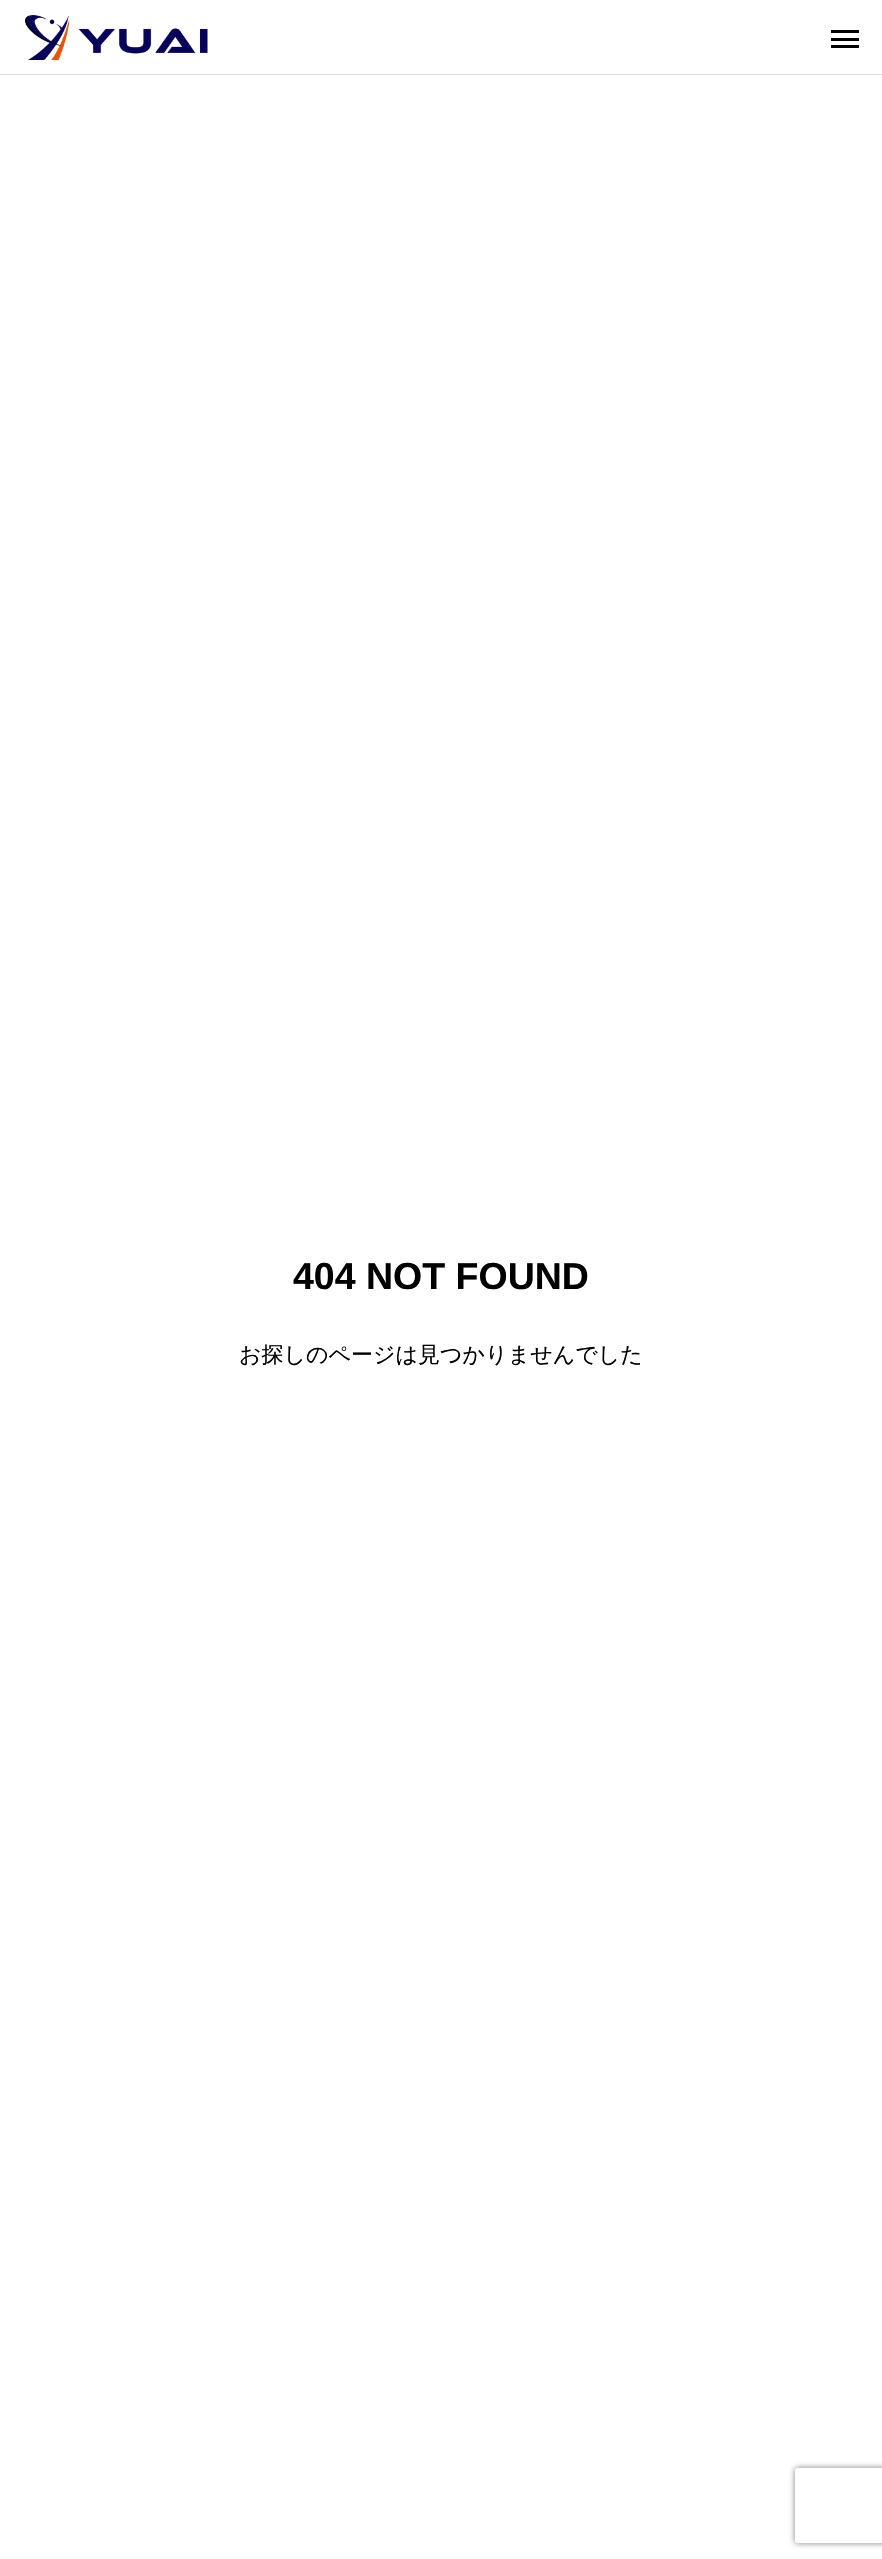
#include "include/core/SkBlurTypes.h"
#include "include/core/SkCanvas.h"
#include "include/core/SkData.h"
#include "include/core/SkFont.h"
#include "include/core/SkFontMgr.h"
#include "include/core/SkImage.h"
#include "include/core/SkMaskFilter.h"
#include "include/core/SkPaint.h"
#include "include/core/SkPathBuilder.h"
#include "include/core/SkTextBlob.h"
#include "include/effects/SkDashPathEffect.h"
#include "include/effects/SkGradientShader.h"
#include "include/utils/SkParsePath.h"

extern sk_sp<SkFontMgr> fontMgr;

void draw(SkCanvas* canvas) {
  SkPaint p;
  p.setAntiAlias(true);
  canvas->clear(SK_ColorWHITE);
  p.setColor(SkColorSetRGB(221, 221, 221));
  canvas->drawRect(SkRect::MakeLTRB(0, 74, 882, 75), p);
  canvas->drawImageRect(SkImages::DeferredFromEncodedData(SkData::MakeFromFileName("images/1.png")), SkRect::MakeLTRB(25, 15, 208, 60), SkSamplingOptions());
  p.setColor(SK_ColorBLACK);
  canvas->drawRect(SkRect::MakeLTRB(831, 30, 859, 33), p);
  canvas->drawRect(SkRect::MakeLTRB(831, 38, 859, 41), p);
  canvas->drawRect(SkRect::MakeLTRB(831, 45, 859, 48), p);
  canvas->save();
  canvas->clipPath(SkPathBuilder(SkPathFillType::kEvenOdd).moveTo(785, 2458).lineTo(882, 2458).lineTo(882, 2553).lineTo(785, 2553).close().moveTo(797.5f, 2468).lineTo(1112.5f, 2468).cubicTo(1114, 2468, 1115, 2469, 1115, 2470.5f).lineTo(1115, 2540.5f).cubicTo(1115, 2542, 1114, 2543, 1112.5f, 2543).lineTo(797.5f, 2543).cubicTo(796, 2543, 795, 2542, 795, 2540.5f).lineTo(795, 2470.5f).cubicTo(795, 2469, 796, 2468, 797.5f, 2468).close().detach(), true);
  p.setColor(SkColorSetRGB(128, 128, 128));
  p.setMaskFilter(SkMaskFilter::MakeBlur(kNormal_SkBlurStyle, 3));
  canvas->drawRoundRect(SkRect::MakeLTRB(795, 2468, 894, 2543), 2.5f, 2.5f, p);
  p.setMaskFilter(nullptr);
  canvas->restore();
  SkFont font1(fontMgr->matchFamilyStyle("Liberation Sans", SkFontStyle::Bold()), 37.5f);
  font1.setSubpixel(true);
  p.setColor(SK_ColorBLACK);
  canvas->drawString("404 NOT FOUND", 293, 1289, font1, p);
  SkFont font2(fontMgr->matchFamilyStyle("WenQuanYi Zen Hei", SkFontStyle(500, SkFontStyle::kNormal_Width, SkFontStyle::kUpright_Slant)), 22);
  font2.setSubpixel(true);
  canvas->drawString("お探しのページは見つかりませんでした", 239, 1362, font2, p);
}
